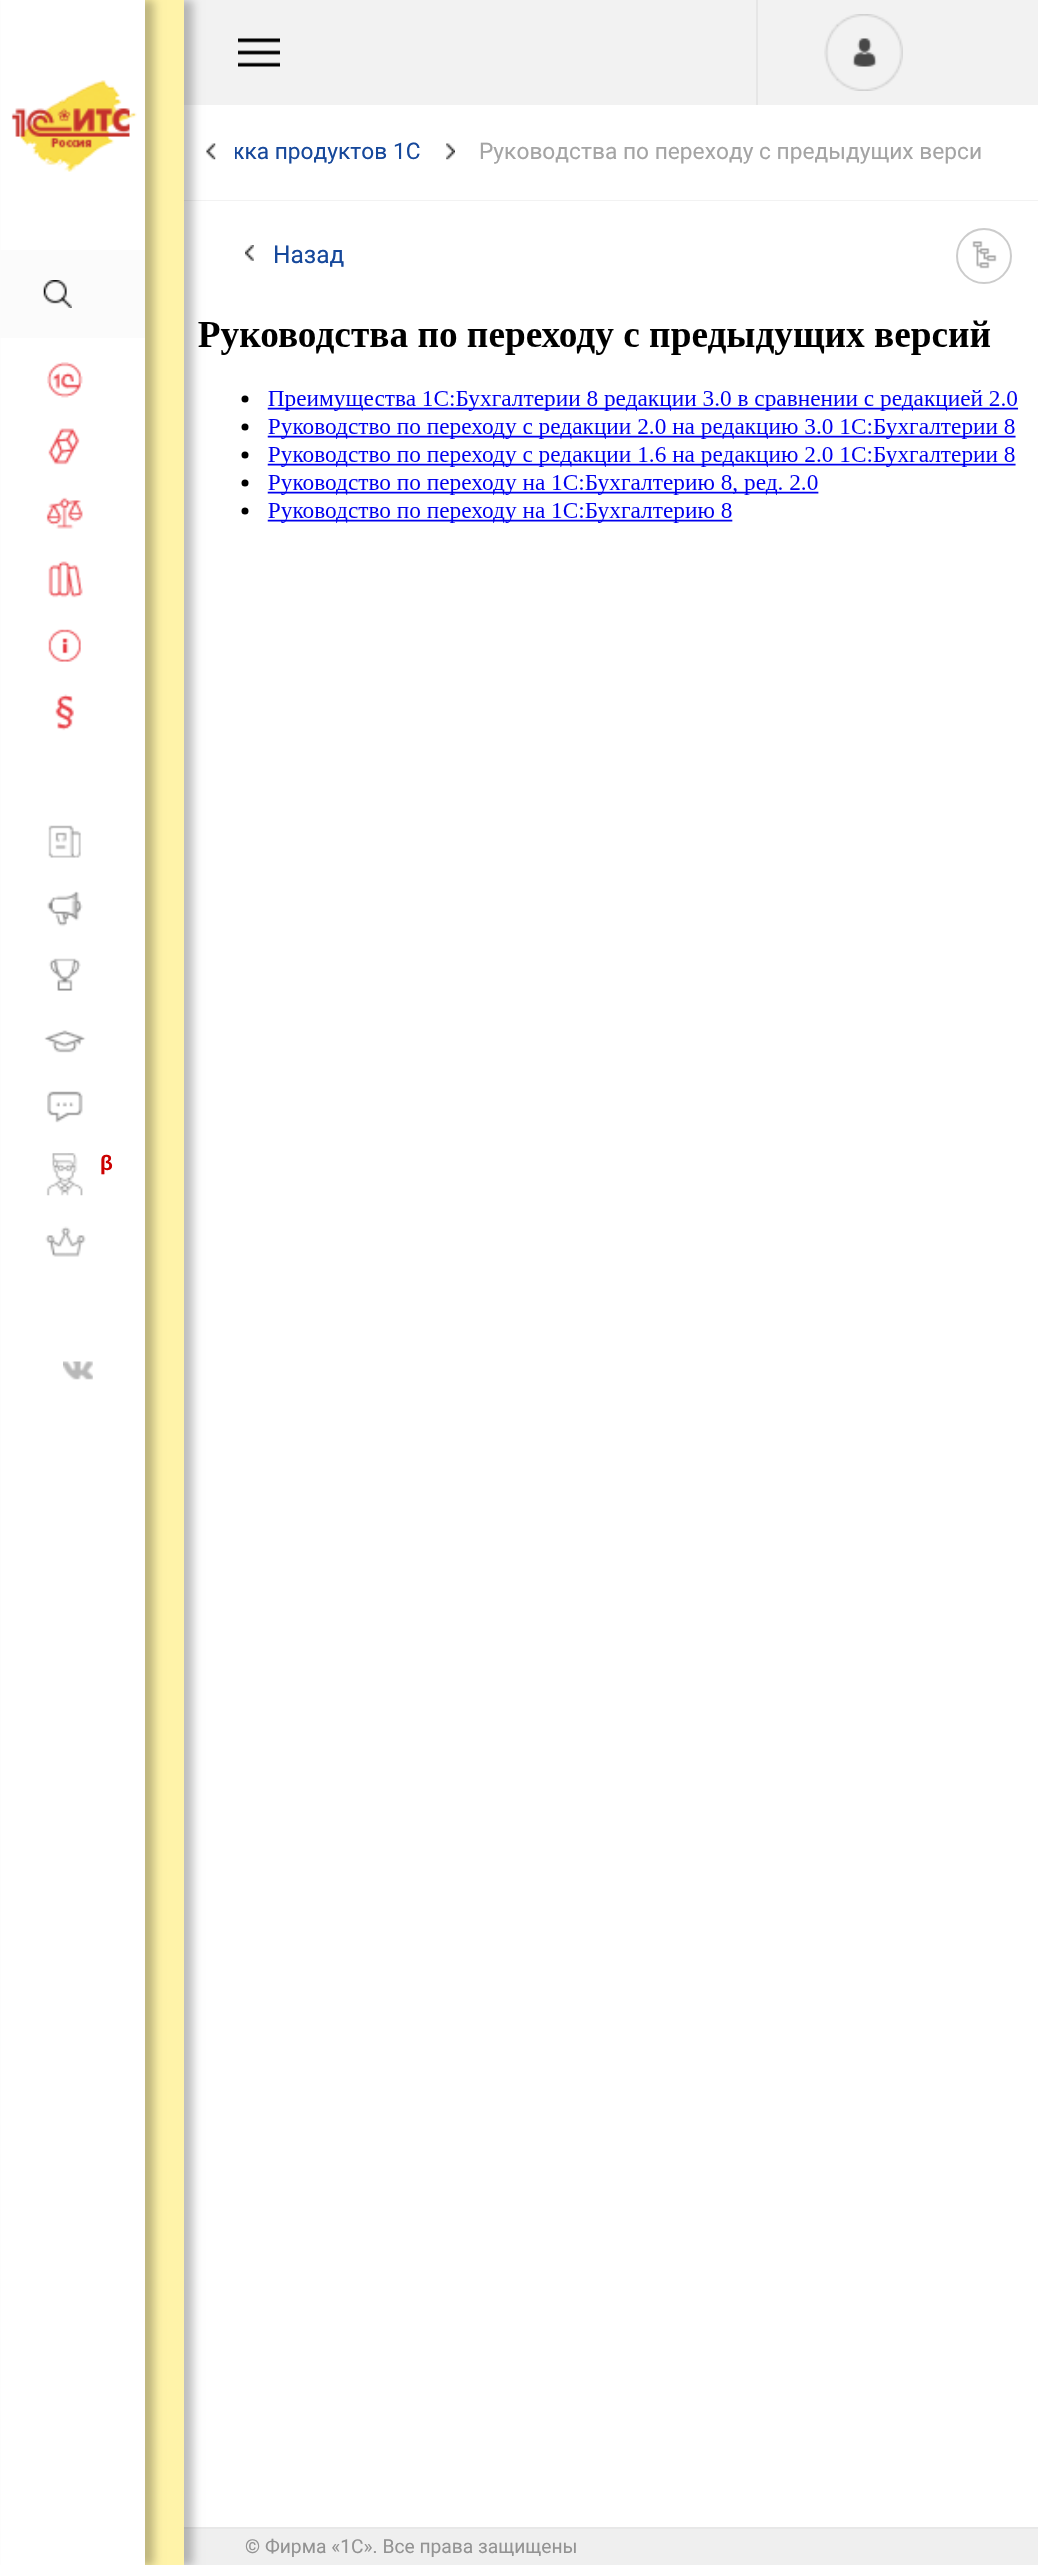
#include "include/core/SkBlurTypes.h"
#include "include/core/SkCanvas.h"
#include "include/core/SkData.h"
#include "include/core/SkFont.h"
#include "include/core/SkFontMgr.h"
#include "include/core/SkImage.h"
#include "include/core/SkMaskFilter.h"
#include "include/core/SkPaint.h"
#include "include/core/SkPathBuilder.h"
#include "include/core/SkTextBlob.h"
#include "include/effects/SkDashPathEffect.h"
#include "include/effects/SkGradientShader.h"
#include "include/utils/SkParsePath.h"

extern sk_sp<SkFontMgr> fontMgr;

void draw(SkCanvas* canvas) {
  SkPaint p;
  p.setAntiAlias(true);
  canvas->clear(SK_ColorWHITE);
  p.setColor(SkColorSetRGB(242, 242, 242));
  canvas->drawRect(SkRect::MakeLTRB(184, 0, 1038, 105), p);
  canvas->drawImageRect(SkImages::DeferredFromEncodedData(SkData::MakeFromFileName("images/1.png")), SkRect::MakeLTRB(238, 38, 280, 67), SkSamplingOptions());
  p.setColor(SkColorSetRGB(230, 230, 230));
  canvas->drawRect(SkRect::MakeLTRB(756, 0, 758, 105), p);
  canvas->drawImageRect(SkImages::DeferredFromEncodedData(SkData::MakeFromFileName("images/2.png")), SkRect::MakeLTRB(824, 14, 903, 91), SkSamplingOptions());
  p.setColor(SkColorSetRGB(242, 242, 242));
  canvas->drawRect(SkRect::MakeLTRB(184, 200, 1038, 201), p);
  canvas->drawImageRect(SkImages::DeferredFromEncodedData(SkData::MakeFromFileName("images/3.png")), SkRect::MakeLTRB(206, 143, 216, 160), SkSamplingOptions());
  canvas->drawImageRect(SkImages::DeferredFromEncodedData(SkData::MakeFromFileName("images/4.png")), SkRect::MakeLTRB(446, 143, 455, 160), SkSamplingOptions());
  canvas->drawImageRect(SkImages::DeferredFromEncodedData(SkData::MakeFromFileName("images/5.png")), SkRect::MakeLTRB(245, 245, 254, 261), SkSamplingOptions());
  canvas->drawImageRect(SkImages::DeferredFromEncodedData(SkData::MakeFromFileName("images/6.png")), SkRect::MakeLTRB(972, 241, 997, 269), SkSamplingOptions());
  p.setStyle(SkPaint::kStroke_Style);
  p.setStrokeWidth(2);
  p.setColor(SkColorSetRGB(204, 204, 204));
  canvas->drawCircle(984, 256, 27, p);
  canvas->drawImageRect(SkImages::DeferredFromEncodedData(SkData::MakeFromFileName("images/7.png")), SkRect::MakeLTRB(198, 320, 1019, 523), SkSamplingOptions());
  p.setStyle(SkPaint::kFill_Style);
  p.setColor(SkColorSetRGB(255, 243, 169));
  canvas->drawRect(SkRect::MakeLTRB(145, 0, 184, 2565), p);
  p.setColor(SkColorSetARGB(64, 0, 0, 0));
  p.setMaskFilter(SkMaskFilter::MakeBlur(kNormal_SkBlurStyle, 4.5f));
  canvas->drawRect(SkRect::MakeLTRB(9, 0, 154, 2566), p);
  p.setMaskFilter(nullptr);
  p.setColor(SK_ColorWHITE);
  canvas->drawRect(SkRect::MakeLTRB(1, 0, 145, 2565), p);
  canvas->drawImageRect(SkImages::DeferredFromEncodedData(SkData::MakeFromFileName("images/8.png")), SkRect::MakeLTRB(11, 80, 137, 172), SkSamplingOptions());
  p.setColor(SkColorSetRGB(251, 251, 251));
  canvas->drawRect(SkRect::MakeLTRB(0, 250, 145, 338), p);
  canvas->drawImageRect(SkImages::DeferredFromEncodedData(SkData::MakeFromFileName("images/9.png")), SkRect::MakeLTRB(43, 280, 72, 308), SkSamplingOptions());
  canvas->drawImageRect(SkImages::DeferredFromEncodedData(SkData::MakeFromFileName("images/10.png")), SkRect::MakeLTRB(47, 362, 83, 398), SkSamplingOptions());
  canvas->drawImageRect(SkImages::DeferredFromEncodedData(SkData::MakeFromFileName("images/11.png")), SkRect::MakeLTRB(48, 428, 80, 465), SkSamplingOptions());
  canvas->drawImageRect(SkImages::DeferredFromEncodedData(SkData::MakeFromFileName("images/12.png")), SkRect::MakeLTRB(46, 497, 83, 529), SkSamplingOptions());
  canvas->drawImageRect(SkImages::DeferredFromEncodedData(SkData::MakeFromFileName("images/13.png")), SkRect::MakeLTRB(48, 561, 83, 598), SkSamplingOptions());
  canvas->drawImageRect(SkImages::DeferredFromEncodedData(SkData::MakeFromFileName("images/14.png")), SkRect::MakeLTRB(48, 629, 81, 662), SkSamplingOptions());
  canvas->drawImageRect(SkImages::DeferredFromEncodedData(SkData::MakeFromFileName("images/15.png")), SkRect::MakeLTRB(55, 694, 74, 731), SkSamplingOptions());
  p.setColor(SkColorSetRGB(239, 239, 239));
  canvas->drawRect(SkRect::MakeLTRB(184, 2529, 1038, 2565), p);
  p.setColor(SkColorSetRGB(232, 232, 232));
  canvas->drawRect(SkRect::MakeLTRB(184, 2527, 1038, 2529), p);
  canvas->save();
  canvas->clipPath(SkPathBuilder(SkPathFillType::kEvenOdd).moveTo(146, 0).lineTo(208, 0).lineTo(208, 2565).lineTo(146, 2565).close().moveTo(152, 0).lineTo(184, 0).lineTo(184, 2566).lineTo(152, 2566).close().detach(), true);
  p.setColor(SkColorSetARGB(64, 0, 0, 0));
  p.setMaskFilter(SkMaskFilter::MakeBlur(kNormal_SkBlurStyle, 4.5f));
  canvas->drawRect(SkRect::MakeLTRB(161, 0, 193, 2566), p);
  p.setMaskFilter(nullptr);
  canvas->restore();
  canvas->drawImageRect(SkImages::DeferredFromEncodedData(SkData::MakeFromFileName("images/16.png")), SkRect::MakeLTRB(48, 825, 81, 858), SkSamplingOptions());
  canvas->drawImageRect(SkImages::DeferredFromEncodedData(SkData::MakeFromFileName("images/17.png")), SkRect::MakeLTRB(47, 891, 83, 927), SkSamplingOptions());
  canvas->drawImageRect(SkImages::DeferredFromEncodedData(SkData::MakeFromFileName("images/18.png")), SkRect::MakeLTRB(48, 958, 81, 991), SkSamplingOptions());
  canvas->drawImageRect(SkImages::DeferredFromEncodedData(SkData::MakeFromFileName("images/19.png")), SkRect::MakeLTRB(44, 1030, 86, 1053), SkSamplingOptions());
  canvas->drawImageRect(SkImages::DeferredFromEncodedData(SkData::MakeFromFileName("images/20.png")), SkRect::MakeLTRB(47, 1091, 83, 1123), SkSamplingOptions());
  canvas->drawImageRect(SkImages::DeferredFromEncodedData(SkData::MakeFromFileName("images/21.png")), SkRect::MakeLTRB(46, 1153, 83, 1196), SkSamplingOptions());
  canvas->drawImageRect(SkImages::DeferredFromEncodedData(SkData::MakeFromFileName("images/22.png")), SkRect::MakeLTRB(45, 1226, 86, 1257), SkSamplingOptions());
  canvas->drawImageRect(SkImages::DeferredFromEncodedData(SkData::MakeFromFileName("images/23.png")), SkRect::MakeLTRB(63, 1361, 93, 1380), SkSamplingOptions());
  canvas->save();
  canvas->clipRect(SkRect::MakeLTRB(235, 105, 987, 198));
  SkFont font1(fontMgr->matchFamilyStyle("Roboto", SkFontStyle::Normal()), 22.75f);
  font1.setSubpixel(true);
  p.setColor(SkColorSetRGB(22, 72, 155));
  canvas->drawString("жка продуктов 1С", 227, 159, font1, p);
  canvas->restore();
  p.setColor(SkColorSetRGB(164, 164, 164));
  canvas->drawString("Руководства по переходу с предыдущих верси", 479, 159, font1, p);
  SkFont font2(fontMgr->matchFamilyStyle("Roboto", SkFontStyle::Normal()), 24.5f);
  font2.setSubpixel(true);
  p.setColor(SkColorSetRGB(22, 72, 155));
  canvas->drawString("Назад", 273, 263, font2, p);
  SkFont font3(fontMgr->matchFamilyStyle("Liberation Sans", SkFontStyle::Bold()), 21);
  font3.setSubpixel(true);
  p.setColor(SkColorSetRGB(204, 0, 0));
  canvas->drawString("β", 100, 1170, font3, p);
  SkFont font4(fontMgr->matchFamilyStyle("Roboto", SkFontStyle::Normal()), 19.25f);
  font4.setSubpixel(true);
  p.setColor(SkColorSetRGB(147, 147, 147));
  canvas->drawString("© Фирма «1С». Все права защищены", 245, 2553, font4, p);
}
